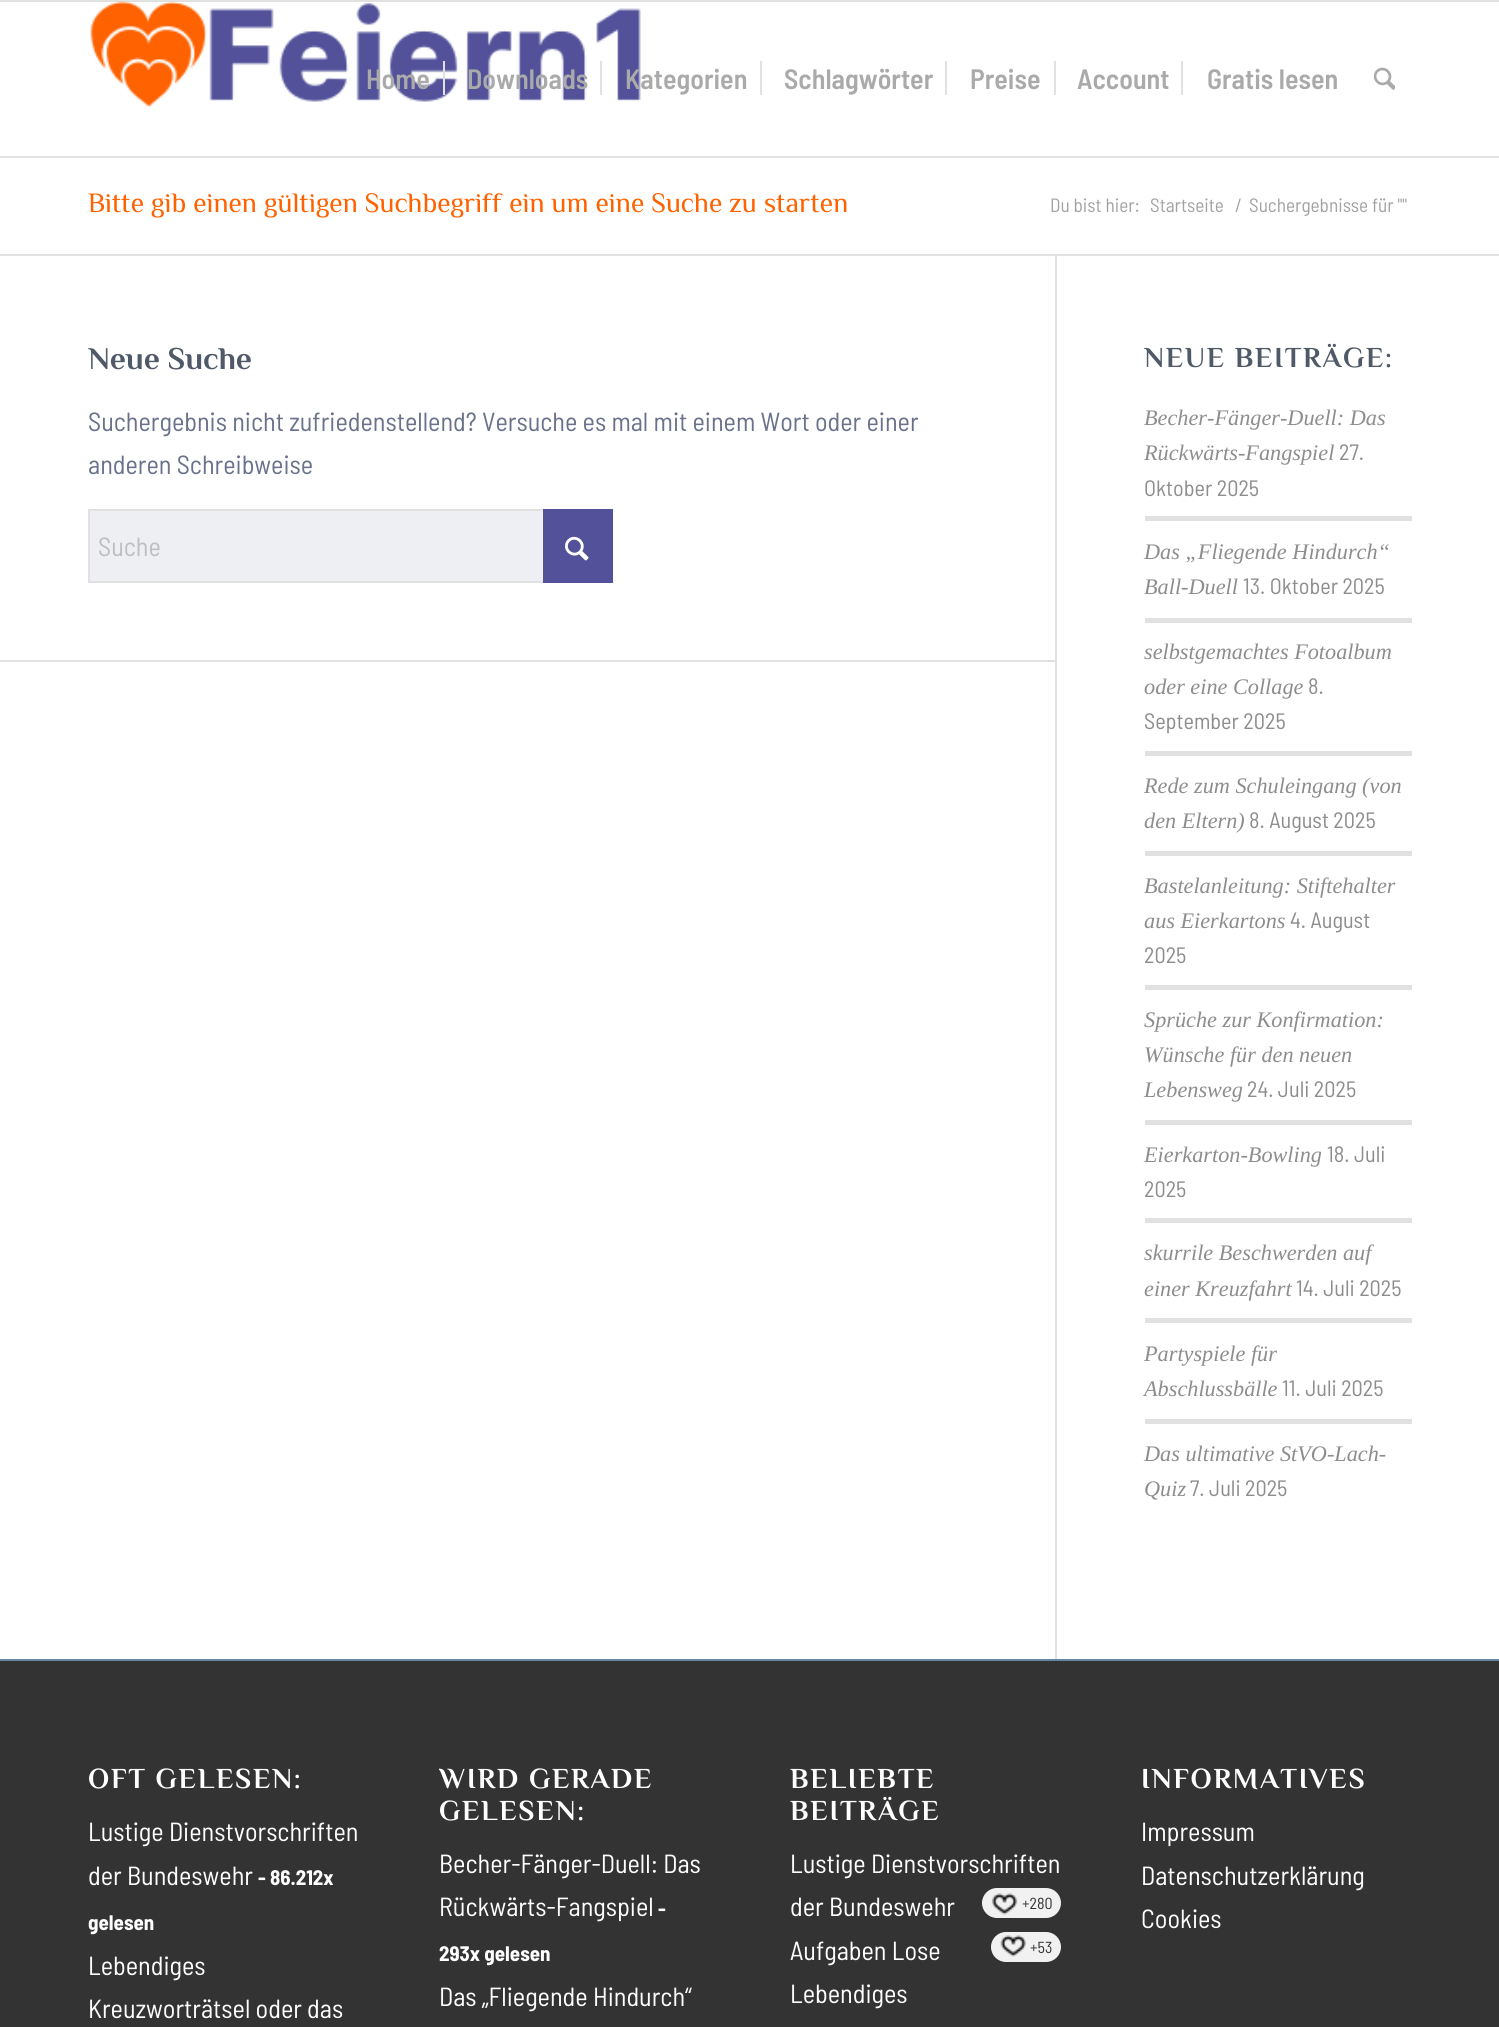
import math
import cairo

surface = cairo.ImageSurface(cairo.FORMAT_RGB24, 1499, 2027)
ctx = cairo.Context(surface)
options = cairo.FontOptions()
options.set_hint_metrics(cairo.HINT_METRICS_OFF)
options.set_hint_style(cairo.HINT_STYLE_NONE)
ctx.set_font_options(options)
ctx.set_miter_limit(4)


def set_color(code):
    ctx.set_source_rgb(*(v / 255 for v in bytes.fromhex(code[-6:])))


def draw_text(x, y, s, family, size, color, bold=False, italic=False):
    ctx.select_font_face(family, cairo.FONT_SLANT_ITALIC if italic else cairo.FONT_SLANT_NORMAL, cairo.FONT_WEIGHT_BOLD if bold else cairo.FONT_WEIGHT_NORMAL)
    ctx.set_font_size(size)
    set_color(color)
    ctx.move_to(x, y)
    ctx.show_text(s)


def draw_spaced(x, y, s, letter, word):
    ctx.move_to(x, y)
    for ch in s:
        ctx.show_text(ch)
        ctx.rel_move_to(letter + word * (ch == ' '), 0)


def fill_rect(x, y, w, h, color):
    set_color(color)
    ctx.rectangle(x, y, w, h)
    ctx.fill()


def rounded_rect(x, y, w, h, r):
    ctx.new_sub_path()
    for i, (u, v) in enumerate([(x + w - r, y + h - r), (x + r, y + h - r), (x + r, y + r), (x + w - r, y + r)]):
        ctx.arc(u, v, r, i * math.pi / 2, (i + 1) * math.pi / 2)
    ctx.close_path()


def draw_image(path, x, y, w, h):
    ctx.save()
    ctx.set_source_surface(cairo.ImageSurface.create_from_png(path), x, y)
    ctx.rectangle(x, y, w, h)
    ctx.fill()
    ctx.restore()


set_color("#ffffff")
ctx.paint()
fill_rect(0, 0, 1499, 2, "#e1e1e1")
fill_rect(0, 156, 1499, 2, "#e1e1e1")
draw_image("assets/img1.png", 90, 1, 551, 106)
draw_text(366, 89, "Home", "Barlow Semi Condensed SemiBold", 28, "#aaaaaa")
draw_text(467, 89, "Downloads", "Barlow Semi Condensed SemiBold", 28, "#aaaaaa")
fill_rect(443, 61, 2, 34, "#e1e1e1")
draw_text(625, 89, "Kategorien", "Barlow Semi Condensed SemiBold", 28, "#aaaaaa")
fill_rect(600, 61, 2, 34, "#e1e1e1")
draw_text(784, 89, "Schlagwörter", "Barlow Semi Condensed SemiBold", 28, "#aaaaaa")
fill_rect(760, 61, 2, 34, "#e1e1e1")
draw_text(970, 89, "Preise", "Barlow Semi Condensed SemiBold", 28, "#aaaaaa")
fill_rect(945, 61, 2, 34, "#e1e1e1")
draw_text(1077, 89, "Account", "Barlow Semi Condensed SemiBold", 28, "#aaaaaa")
fill_rect(1054, 61, 2, 34, "#e1e1e1")
draw_text(1207, 89, "Gratis lesen", "Barlow Semi Condensed SemiBold", 28, "#aaaaaa")
fill_rect(1181, 61, 2, 34, "#e1e1e1")
draw_image("assets/img2.png", 1374, 67, 21, 23)
draw_text(88, 212, "Bitte gib einen gültigen Suchbegriff ein um eine Suche zu starten", "Philosopher", 28, "#ff6200")
draw_text(1050, 212, "Du bist hier:", "Barlow Semi Condensed", 19.25, "#a2a2a2")
draw_text(1150, 212, "Startseite", "Barlow Semi Condensed", 19.25, "#a2a2a2")
draw_text(1235, 212, "/", "Barlow Semi Condensed", 19.25, "#a2a2a2")
draw_text(1249, 212, "Suchergebnisse für \"\"", "Barlow Semi Condensed", 19.25, "#a2a2a2")
fill_rect(0, 254, 1499, 2, "#e1e1e1")
draw_text(88, 369, "Neue Suche", "Philosopher", 31.5, "#505968", bold=True)
draw_text(88, 431, "Suchergebnis nicht zufriedenstellend? Versuche es mal mit einem Wort oder einer", "Barlow Semi Condensed", 26.25, "#69728a")
draw_text(88, 474, "anderen Schreibweise", "Barlow Semi Condensed", 26.25, "#69728a")
fill_rect(90, 511, 453, 70, "#edeff2")
ctx.rectangle(89, 510, 523, 72)
set_color("#e1e1e1")
ctx.stroke()
fill_rect(543, 509, 70, 74, "#525199")
draw_text(98, 556, "Suche", "Barlow Semi Condensed", 26.25, "#bdbec0")
draw_image("assets/img3.png", 565, 536, 24, 25)
fill_rect(0, 660, 1055, 2, "#e1e1e1")
fill_rect(1055, 256, 2, 1403, "#e1e1e1")
ctx.select_font_face("Philosopher", cairo.FONT_SLANT_NORMAL, cairo.FONT_WEIGHT_BOLD)
ctx.set_font_size(28.9)
set_color("#505968")
draw_spaced(1144, 367, "NEUE BEITRÄGE:", 1.75, 0)
draw_text(1144, 425, "Becher-Fänger-Duell: Das", "Liberation Serif", 22.25, "#8d8d8d", italic=True)
draw_text(1144, 460, "Rückwärts-Fangspiel", "Liberation Serif", 22.25, "#8d8d8d", italic=True)
draw_text(1339, 460, "27.", "Barlow Semi Condensed", 22.25, "#8d8d8d")
draw_text(1144, 496, "Oktober 2025", "Barlow Semi Condensed", 22.25, "#8d8d8d")
fill_rect(1145, 516, 267, 5, "#e1e1e1")
draw_text(1144, 559, "Das „Fliegende Hindurch“", "Liberation Serif", 22.25, "#8d8d8d", italic=True)
draw_text(1144, 594, "Ball-Duell", "Liberation Serif", 22.25, "#8d8d8d", italic=True)
draw_text(1243, 594, "13. Oktober 2025", "Barlow Semi Condensed", 22.25, "#8d8d8d")
fill_rect(1145, 618, 267, 5, "#e1e1e1")
draw_text(1144, 659, "selbstgemachtes Fotoalbum", "Liberation Serif", 22.25, "#8d8d8d", italic=True)
draw_text(1144, 694, "oder eine Collage", "Liberation Serif", 22.25, "#8d8d8d", italic=True)
draw_text(1308, 694, "8.", "Barlow Semi Condensed", 22.25, "#8d8d8d")
draw_text(1144, 729, "September 2025", "Barlow Semi Condensed", 22.25, "#8d8d8d")
fill_rect(1145, 751, 267, 5, "#e1e1e1")
draw_text(1144, 793, "Rede zum Schuleingang (von", "Liberation Serif", 22.25, "#8d8d8d", italic=True)
draw_text(1144, 828, "den Eltern)", "Liberation Serif", 22.25, "#8d8d8d", italic=True)
draw_text(1249, 828, "8. August 2025", "Barlow Semi Condensed", 22.25, "#8d8d8d")
fill_rect(1145, 851, 267, 5, "#e1e1e1")
draw_text(1144, 893, "Bastelanleitung: Stiftehalter", "Liberation Serif", 22.25, "#8d8d8d", italic=True)
draw_text(1144, 928, "aus Eierkartons", "Liberation Serif", 22.25, "#8d8d8d", italic=True)
draw_text(1290, 928, "4. August", "Barlow Semi Condensed", 22.25, "#8d8d8d")
draw_text(1144, 963, "2025", "Barlow Semi Condensed", 22.25, "#8d8d8d")
fill_rect(1145, 985, 267, 5, "#e1e1e1")
draw_text(1144, 1027, "Sprüche zur Konfirmation:", "Liberation Serif", 22.25, "#8d8d8d", italic=True)
draw_text(1144, 1062, "Wünsche für den neuen", "Liberation Serif", 22.25, "#8d8d8d", italic=True)
draw_text(1144, 1097, "Lebensweg", "Liberation Serif", 22.25, "#8d8d8d", italic=True)
draw_text(1247, 1097, "24. Juli 2025", "Barlow Semi Condensed", 22.25, "#8d8d8d")
fill_rect(1145, 1120, 267, 5, "#e1e1e1")
draw_text(1144, 1162, "Eierkarton-Bowling", "Liberation Serif", 22.25, "#8d8d8d", italic=True)
draw_text(1327, 1162, "18. Juli", "Barlow Semi Condensed", 22.25, "#8d8d8d")
draw_text(1144, 1197, "2025", "Barlow Semi Condensed", 22.25, "#8d8d8d")
fill_rect(1145, 1218, 267, 5, "#e1e1e1")
draw_text(1144, 1260, "skurrile Beschwerden auf", "Liberation Serif", 22.25, "#8d8d8d", italic=True)
draw_text(1144, 1296, "einer Kreuzfahrt", "Liberation Serif", 22.25, "#8d8d8d", italic=True)
draw_text(1296, 1296, "14. Juli 2025", "Barlow Semi Condensed", 22.25, "#8d8d8d")
fill_rect(1145, 1318, 267, 5, "#e1e1e1")
draw_text(1144, 1361, "Partyspiele für", "Liberation Serif", 22.25, "#8d8d8d", italic=True)
draw_text(1144, 1396, "Abschlussbälle", "Liberation Serif", 22.25, "#8d8d8d", italic=True)
draw_text(1282, 1396, "11. Juli 2025", "Barlow Semi Condensed", 22.25, "#8d8d8d")
fill_rect(1145, 1419, 267, 5, "#e1e1e1")
draw_text(1144, 1461, "Das ultimative StVO-Lach-", "Liberation Serif", 22.25, "#8d8d8d", italic=True)
draw_text(1144, 1496, "Quiz", "Liberation Serif", 22.25, "#8d8d8d", italic=True)
draw_text(1190, 1496, "7. Juli 2025", "Barlow Semi Condensed", 22.25, "#8d8d8d")
fill_rect(0, 1661, 1499, 366, "#333333")
fill_rect(0, 1659, 1499, 2, "#6786a1")
ctx.select_font_face("Philosopher", cairo.FONT_SLANT_NORMAL, cairo.FONT_WEIGHT_BOLD)
ctx.set_font_size(28.9)
set_color("#ffffff")
draw_spaced(88, 1788, "OFT GELESEN:", 1.75, 0)
draw_text(88, 1841, "Lustige Dienstvorschriften", "Barlow Semi Condensed", 26.25, "#ffffff")
draw_text(88, 1885, "der Bundeswehr", "Barlow Semi Condensed", 26.25, "#ffffff")
draw_text(258, 1885, "- 86.212x", "Barlow Semi Condensed", 21, "#ffffff", bold=True)
draw_text(88, 1930, "gelesen", "Barlow Semi Condensed", 21, "#ffffff", bold=True)
draw_text(88, 1975, "Lebendiges", "Barlow Semi Condensed", 26.25, "#ffffff")
draw_text(88, 2018, "Kreuzworträtsel oder das", "Barlow Semi Condensed", 26.25, "#ffffff")
ctx.save()
ctx.rectangle(439, 1740, 272, 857)
ctx.clip()
ctx.select_font_face("Philosopher", cairo.FONT_SLANT_NORMAL, cairo.FONT_WEIGHT_BOLD)
ctx.set_font_size(28.9)
draw_spaced(439, 1788, "WIRD GERADE", 1.75, 0)
ctx.restore()
ctx.select_font_face("Philosopher", cairo.FONT_SLANT_NORMAL, cairo.FONT_WEIGHT_BOLD)
ctx.set_font_size(28.9)
draw_spaced(439, 1820, "GELESEN:", 1.75, 0)
draw_text(439, 1873, "Becher-Fänger-Duell: Das", "Barlow Semi Condensed", 26.25, "#ffffff")
draw_text(439, 1916, "Rückwärts-Fangspiel", "Barlow Semi Condensed", 26.25, "#ffffff")
draw_text(658, 1916, "-", "Barlow Semi Condensed", 21, "#ffffff", bold=True)
draw_text(439, 1961, "293x gelesen", "Barlow Semi Condensed", 21, "#ffffff", bold=True)
draw_text(439, 2006, "Das „Fliegende Hindurch“", "Barlow Semi Condensed", 26.25, "#ffffff")
ctx.select_font_face("Philosopher", cairo.FONT_SLANT_NORMAL, cairo.FONT_WEIGHT_BOLD)
ctx.set_font_size(28.9)
draw_spaced(790, 1788, "BELIEBTE", 1.75, 0)
draw_spaced(790, 1820, "BEITRÄGE", 1.75, 0)
draw_text(790, 1873, "Lustige Dienstvorschriften", "Barlow Semi Condensed", 26.25, "#ffffff")
draw_text(790, 1916, "der Bundeswehr", "Barlow Semi Condensed", 26.25, "#ffffff")
set_color("#f1f1f1")
rounded_rect(982, 1888, 79, 30, 15)
ctx.fill()
draw_image("assets/img4.png", 991, 1893, 27, 22)
draw_text(1022, 1909, "+280", "Barlow Semi Condensed", 16, "#333333")
draw_text(790, 1960, "Aufgaben Lose", "Barlow Semi Condensed", 26.25, "#ffffff")
set_color("#f1f1f1")
rounded_rect(991, 1932, 70, 30, 15)
ctx.fill()
draw_image("assets/img5.png", 1000, 1935, 26, 22)
draw_text(1030, 1953, "+53", "Barlow Semi Condensed", 16, "#333333")
draw_text(790, 2003, "Lebendiges", "Barlow Semi Condensed", 26.25, "#ffffff")
ctx.select_font_face("Philosopher", cairo.FONT_SLANT_NORMAL, cairo.FONT_WEIGHT_BOLD)
ctx.set_font_size(28.9)
draw_spaced(1141, 1788, "INFORMATIVES", 1.75, 0)
draw_text(1141, 1841, "Impressum", "Barlow Semi Condensed", 26.25, "#ffffff")
draw_text(1141, 1885, "Datenschutzerklärung", "Barlow Semi Condensed", 26.25, "#ffffff")
draw_text(1141, 1928, "Cookies", "Barlow Semi Condensed", 26.25, "#ffffff")
surface.write_to_png("output.png")
